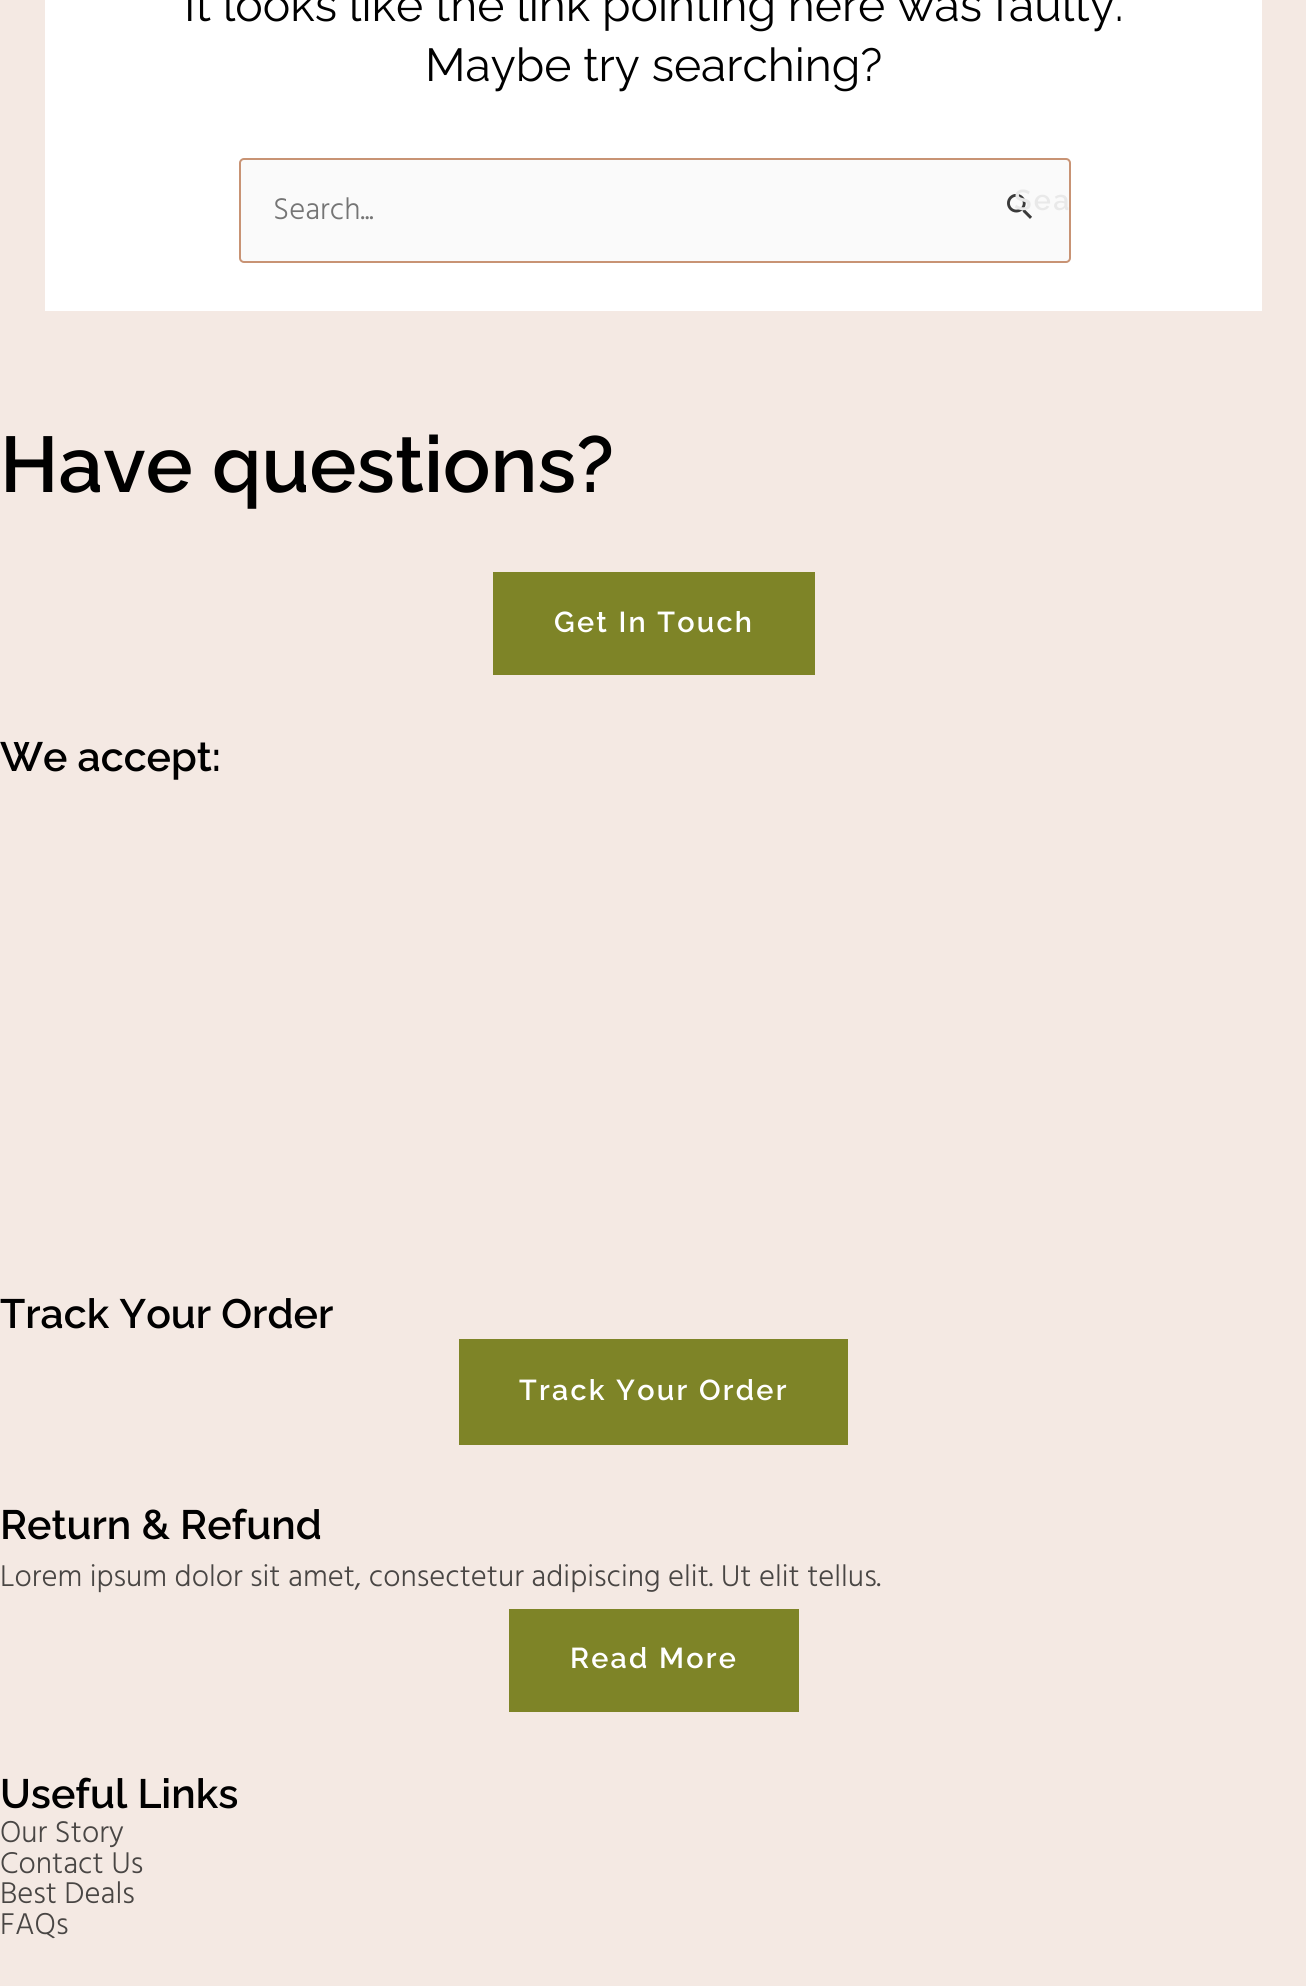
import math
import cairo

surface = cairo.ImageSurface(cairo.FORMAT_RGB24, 1306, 1986)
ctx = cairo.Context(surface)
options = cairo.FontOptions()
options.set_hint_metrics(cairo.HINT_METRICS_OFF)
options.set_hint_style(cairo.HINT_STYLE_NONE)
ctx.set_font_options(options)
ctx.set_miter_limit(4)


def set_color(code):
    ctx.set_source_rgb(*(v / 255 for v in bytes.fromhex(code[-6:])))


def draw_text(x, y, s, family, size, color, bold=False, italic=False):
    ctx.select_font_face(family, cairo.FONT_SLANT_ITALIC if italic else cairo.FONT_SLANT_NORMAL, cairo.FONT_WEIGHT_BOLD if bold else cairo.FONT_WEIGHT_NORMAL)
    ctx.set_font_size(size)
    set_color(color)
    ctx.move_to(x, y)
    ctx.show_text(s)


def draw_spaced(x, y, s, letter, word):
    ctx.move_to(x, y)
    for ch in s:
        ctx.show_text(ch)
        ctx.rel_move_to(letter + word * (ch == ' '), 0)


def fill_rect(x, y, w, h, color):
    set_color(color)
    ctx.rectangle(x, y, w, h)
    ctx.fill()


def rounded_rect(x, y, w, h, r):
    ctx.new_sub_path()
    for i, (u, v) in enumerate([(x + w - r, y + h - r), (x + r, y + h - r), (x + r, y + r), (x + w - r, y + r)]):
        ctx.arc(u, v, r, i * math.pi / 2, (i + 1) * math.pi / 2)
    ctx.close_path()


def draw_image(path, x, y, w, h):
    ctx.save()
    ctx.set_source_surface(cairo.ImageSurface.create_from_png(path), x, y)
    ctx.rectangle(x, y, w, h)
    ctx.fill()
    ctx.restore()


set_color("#f4e9e3")
ctx.paint()
fill_rect(45, 0, 1217, 311, "#ffffff")
draw_text(184, 21, "It looks like the link pointing here was faulty.", "Raleway", 46.2, "#000000")
draw_text(425, 81, "Maybe try searching?", "Raleway", 46.2, "#000000")
set_color("#fafafa")
rounded_rect(240, 159, 830, 103, 4)
ctx.fill_preserve()
set_color("#c89374")
ctx.stroke()
draw_text(273, 219, "Search...", "Hind Light", 30.75, "#757575")
draw_image("assets/img1.png", 1007, 194, 25, 25)
ctx.select_font_face("Raleway SemiBold")
ctx.set_font_size(28.75)
set_color("#e9e9e9")
draw_spaced(1014, 210, "Sea", 2.25, 0)
draw_text(0, 492, "Have questions?", "Raleway SemiBold", 78.75, "#000000")
fill_rect(493, 572, 322, 103, "#7e8427")
ctx.set_font_size(28.75)
set_color("#ffffff")
draw_spaced(554, 632, "Get In Touch", 2.25, 0)
draw_text(0, 771, "We accept:", "Raleway SemiBold", 41, "#000000")
draw_text(0, 1328, "Track Your Order", "Raleway SemiBold", 41, "#000000")
fill_rect(459, 1339, 389, 106, "#7e8427")
ctx.set_font_size(28.75)
set_color("#ffffff")
draw_spaced(519, 1400, "Track Your Order", 2.25, 0)
draw_text(0, 1539, "Return & Refund", "Raleway SemiBold", 41, "#000000")
draw_text(0, 1586, "Lorem ipsum dolor sit amet, consectetur adipiscing elit. Ut elit tellus.", "Hind Light", 30.75, "#494644")
fill_rect(509, 1609, 290, 103, "#7e8427")
ctx.select_font_face("Raleway SemiBold")
ctx.set_font_size(28.75)
set_color("#ffffff")
draw_spaced(570, 1668, "Read More", 2.25, 0)
draw_text(0, 1808, "Useful Links", "Raleway SemiBold", 41, "#000000")
draw_text(0, 1842, "Our Story", "Hind Light", 30.75, "#494644")
draw_text(0, 1873, "Contact Us", "Hind Light", 30.75, "#494644")
draw_text(0, 1903, "Best Deals", "Hind Light", 30.75, "#494644")
draw_text(0, 1934, "FAQs", "Hind Light", 30.75, "#494644")
surface.write_to_png("output.png")
